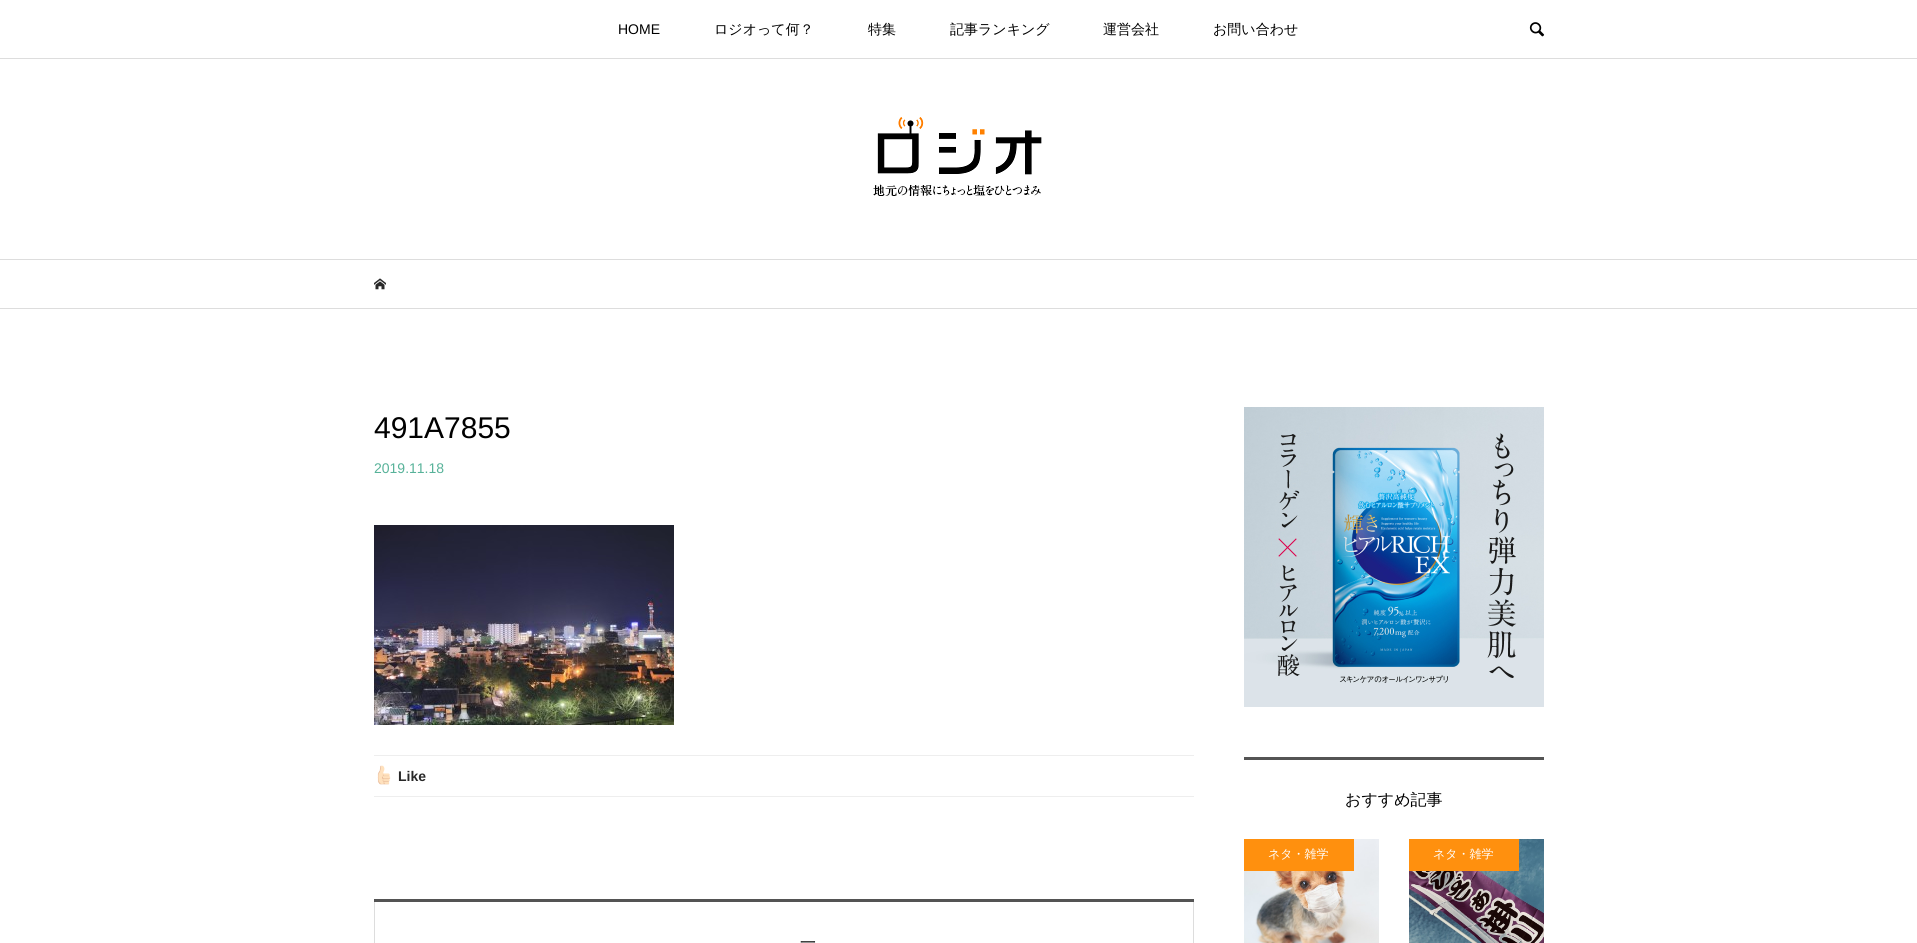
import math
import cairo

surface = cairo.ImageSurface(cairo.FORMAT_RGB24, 1917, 943)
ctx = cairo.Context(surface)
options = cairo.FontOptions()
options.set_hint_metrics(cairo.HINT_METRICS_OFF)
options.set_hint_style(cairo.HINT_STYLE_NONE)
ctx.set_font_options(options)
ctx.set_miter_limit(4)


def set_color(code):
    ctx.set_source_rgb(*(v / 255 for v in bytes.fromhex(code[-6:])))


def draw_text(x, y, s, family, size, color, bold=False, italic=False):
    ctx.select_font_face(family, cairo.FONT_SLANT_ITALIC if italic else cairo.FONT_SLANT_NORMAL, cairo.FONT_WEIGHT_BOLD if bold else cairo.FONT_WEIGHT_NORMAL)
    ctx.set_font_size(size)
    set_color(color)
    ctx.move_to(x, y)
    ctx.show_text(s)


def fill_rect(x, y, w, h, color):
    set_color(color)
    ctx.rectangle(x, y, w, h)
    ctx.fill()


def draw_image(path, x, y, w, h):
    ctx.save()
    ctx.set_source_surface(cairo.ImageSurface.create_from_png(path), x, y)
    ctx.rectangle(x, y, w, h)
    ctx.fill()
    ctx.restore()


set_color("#ffffff")
ctx.paint()
fill_rect(0, 58, 1917, 1, "#dddddd")
draw_text(618, 34, "HOME", "Liberation Sans", 14, "#000000")
draw_text(714, 34, "ロジオって何？", "WenQuanYi Zen Hei Medium", 14, "#000000")
draw_text(868, 34, "特集", "WenQuanYi Zen Hei Medium", 14, "#000000")
draw_text(950, 34, "記事ランキング", "WenQuanYi Zen Hei Medium", 14, "#000000")
draw_text(1103, 34, "運営会社", "WenQuanYi Zen Hei Medium", 14, "#000000")
draw_text(1213, 34, "お問い合わせ", "WenQuanYi Zen Hei Medium", 14, "#000000")
draw_image("assets/img1.png", 1529, 22, 16, 15)
draw_image("assets/img2.png", 873, 117, 169, 79)
fill_rect(0, 259, 1917, 1, "#dddddd")
fill_rect(0, 308, 1917, 1, "#dddddd")
draw_image("assets/img3.png", 374, 278, 12, 12)
draw_text(374, 438, "491A7855", "Liberation Sans", 30, "#000000")
draw_text(374, 473, "2019.11.18", "Liberation Sans", 14, "#57b299")
draw_image("assets/img4.png", 374, 525, 300, 200)
fill_rect(374, 755, 820, 1, "#eeeeee")
fill_rect(374, 796, 820, 1, "#eeeeee")
draw_image("assets/img5.png", 377, 765, 14, 20)
draw_text(398, 781, "Like", "Liberation Sans", 14, "#282828", bold=True)
fill_rect(374, 899, 820, 3, "#545454")
fill_rect(1193, 902, 1, 41, "#dddddd")
fill_rect(374, 902, 1, 41, "#dddddd")
draw_text(800, 948, "一", "WenQuanYi Zen Hei Medium", 16, "#000000")
draw_image("assets/img6.png", 1244, 407, 300, 300)
fill_rect(1244, 757, 300, 3, "#545454")
draw_text(1345, 805, "おすすめ記事", "WenQuanYi Zen Hei Medium", 16, "#000000")
draw_image("assets/img7.png", 1244, 839, 135, 104)
fill_rect(1244, 839, 110, 32, "#ff900e")
draw_text(1268, 858, "ネタ・雑学", "WenQuanYi Zen Hei Medium", 12, "#ffffff")
draw_image("assets/img8.png", 1409, 839, 135, 104)
fill_rect(1409, 839, 110, 32, "#ff900e")
draw_text(1433, 858, "ネタ・雑学", "WenQuanYi Zen Hei Medium", 12, "#ffffff")
surface.write_to_png("output.png")
